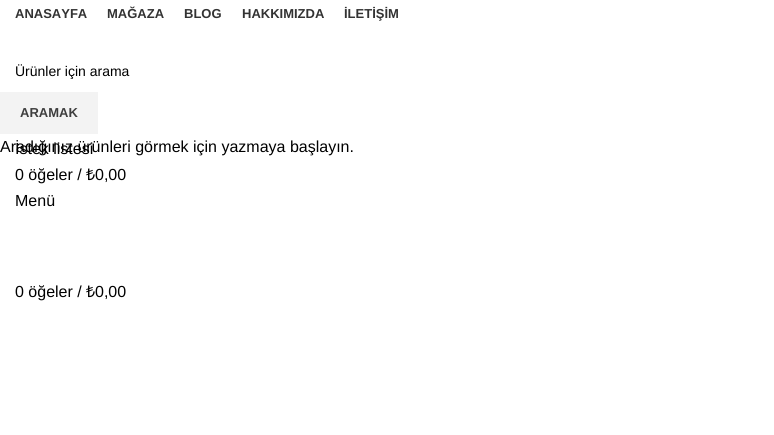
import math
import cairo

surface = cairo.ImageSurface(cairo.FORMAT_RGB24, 774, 435)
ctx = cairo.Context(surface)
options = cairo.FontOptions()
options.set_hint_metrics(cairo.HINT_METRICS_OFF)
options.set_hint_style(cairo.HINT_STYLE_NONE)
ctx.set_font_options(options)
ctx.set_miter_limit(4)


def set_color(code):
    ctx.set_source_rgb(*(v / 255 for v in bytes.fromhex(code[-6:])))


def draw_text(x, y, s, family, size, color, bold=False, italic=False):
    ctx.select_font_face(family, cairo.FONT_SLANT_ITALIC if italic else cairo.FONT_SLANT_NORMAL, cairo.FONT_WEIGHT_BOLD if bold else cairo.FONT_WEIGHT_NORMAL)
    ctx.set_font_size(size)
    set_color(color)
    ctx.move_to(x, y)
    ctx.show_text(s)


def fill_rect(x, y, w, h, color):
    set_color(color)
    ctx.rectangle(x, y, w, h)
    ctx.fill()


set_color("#ffffff")
ctx.paint()
draw_text(15, 18, "ANASAYFA", "Liberation Sans", 13, "#333333", bold=True)
draw_text(107, 18, "MAĞAZA", "Liberation Sans", 13, "#333333", bold=True)
draw_text(184, 18, "BLOG", "Liberation Sans", 13, "#333333", bold=True)
draw_text(242, 18, "HAKKIMIZDA", "Liberation Sans", 13, "#333333", bold=True)
draw_text(344, 18, "İLETİŞİM", "Liberation Sans", 13, "#333333", bold=True)
draw_text(15, 154, "İstek listesi", "Liberation Sans", 16, "#000000")
draw_text(15, 180, "0 öğeler /", "Liberation Sans", 16, "#000000")
draw_text(86, 180, "₺", "Noto Sans", 16, "#000000")
draw_text(95, 180, "0,00", "Liberation Sans", 16, "#000000")
draw_text(15, 206, "Menü", "Liberation Sans", 16, "#000000")
draw_text(15, 297, "0 öğeler /", "Liberation Sans", 16, "#000000")
draw_text(86, 297, "₺", "Noto Sans", 16, "#000000")
draw_text(95, 297, "0,00", "Liberation Sans", 16, "#000000")
draw_text(15, 76, "Ürünler için arama", "Liberation Sans", 14, "#000000")
fill_rect(0, 92, 98, 42, "#f3f3f3")
draw_text(20, 117, "ARAMAK", "Liberation Sans", 13, "#3e3e3e", bold=True)
draw_text(0, 152, "Aradığınız ürünleri görmek için yazmaya başlayın.", "Liberation Sans", 16, "#000000")
surface.write_to_png("output.png")
